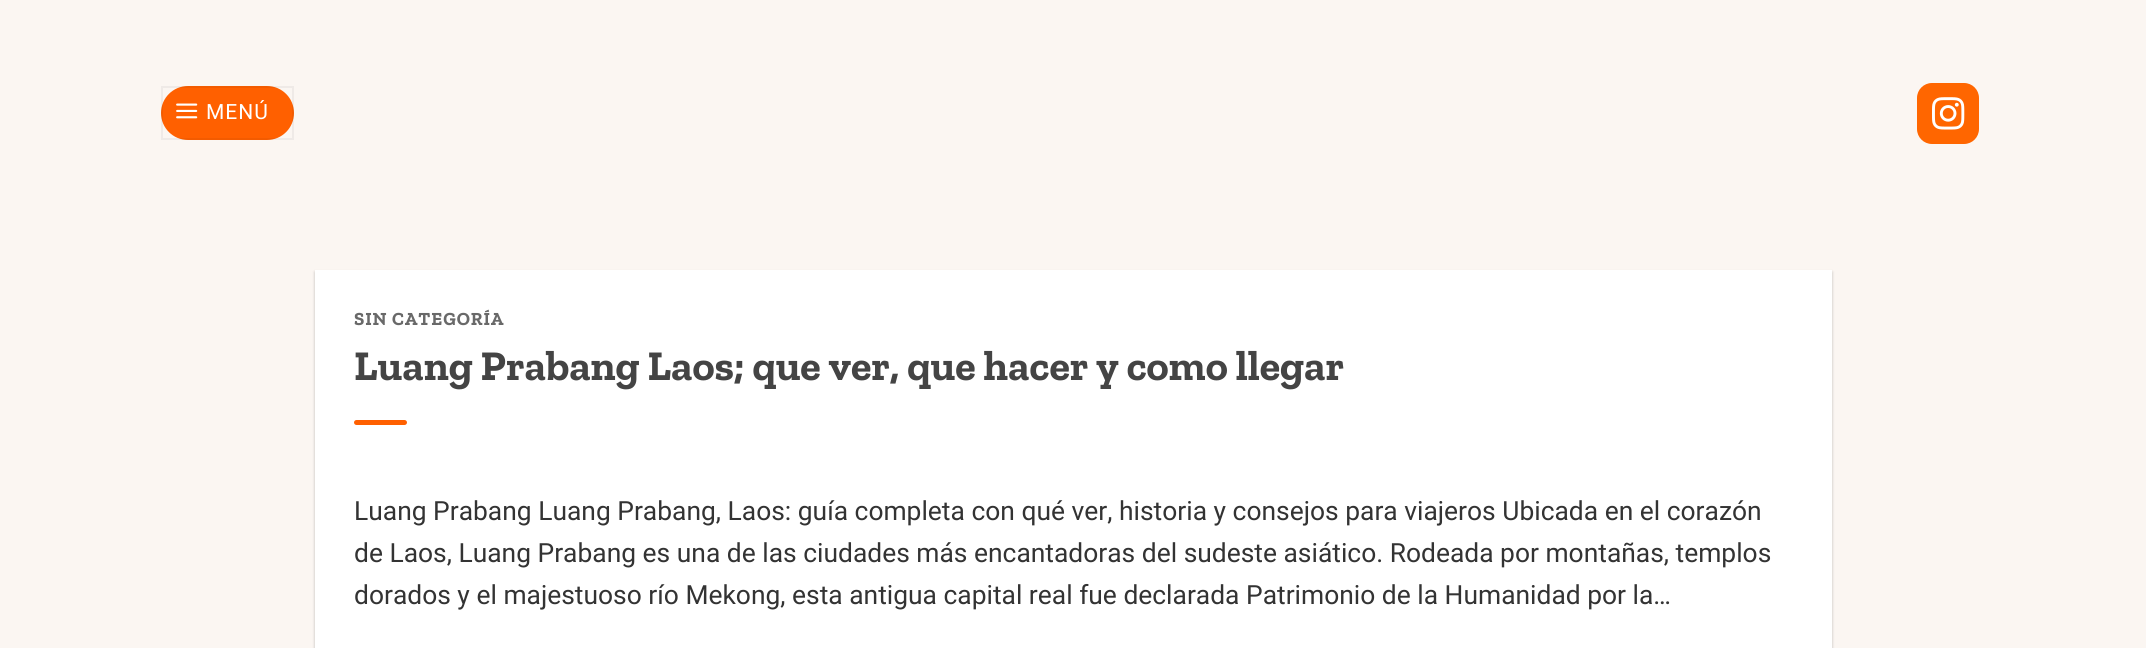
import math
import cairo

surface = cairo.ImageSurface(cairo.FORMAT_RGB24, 2146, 648)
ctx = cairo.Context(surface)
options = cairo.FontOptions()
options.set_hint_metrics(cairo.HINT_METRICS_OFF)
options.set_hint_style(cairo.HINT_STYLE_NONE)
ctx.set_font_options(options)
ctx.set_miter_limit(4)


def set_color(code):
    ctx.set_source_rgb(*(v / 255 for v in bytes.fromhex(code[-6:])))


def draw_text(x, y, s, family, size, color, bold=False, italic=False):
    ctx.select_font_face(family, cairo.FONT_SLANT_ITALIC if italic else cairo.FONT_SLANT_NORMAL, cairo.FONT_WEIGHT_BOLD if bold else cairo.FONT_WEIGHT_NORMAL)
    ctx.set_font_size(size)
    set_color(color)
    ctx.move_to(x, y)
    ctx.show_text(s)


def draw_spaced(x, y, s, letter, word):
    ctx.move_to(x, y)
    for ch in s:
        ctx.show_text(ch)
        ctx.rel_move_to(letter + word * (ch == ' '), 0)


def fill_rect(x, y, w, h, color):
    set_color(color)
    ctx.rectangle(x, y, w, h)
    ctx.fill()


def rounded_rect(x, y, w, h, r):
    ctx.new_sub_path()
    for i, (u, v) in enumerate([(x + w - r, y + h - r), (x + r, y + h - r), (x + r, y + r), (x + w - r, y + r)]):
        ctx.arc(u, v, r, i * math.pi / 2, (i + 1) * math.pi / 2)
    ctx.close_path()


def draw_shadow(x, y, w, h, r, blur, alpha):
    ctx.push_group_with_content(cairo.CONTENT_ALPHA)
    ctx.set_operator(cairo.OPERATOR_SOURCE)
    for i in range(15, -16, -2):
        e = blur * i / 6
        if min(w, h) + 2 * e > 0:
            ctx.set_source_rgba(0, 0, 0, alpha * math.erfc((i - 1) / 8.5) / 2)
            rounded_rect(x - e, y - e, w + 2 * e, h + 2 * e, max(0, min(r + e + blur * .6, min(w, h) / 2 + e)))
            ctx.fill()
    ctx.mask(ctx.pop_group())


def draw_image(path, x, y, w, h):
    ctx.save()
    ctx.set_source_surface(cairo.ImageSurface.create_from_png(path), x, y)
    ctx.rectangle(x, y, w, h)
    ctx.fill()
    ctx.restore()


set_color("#fbf6f2")
ctx.paint()
set_color("#ff6000")
rounded_rect(161, 86, 133, 54, 27)
ctx.fill()
ctx.rectangle(162, 87, 131, 52)
ctx.set_source_rgba(0, 0, 0, 0.05)
ctx.stroke()
draw_image("assets/img1.png", 176, 103, 22, 16)
ctx.select_font_face("Roboto")
ctx.set_font_size(21)
set_color("#ffffff")
draw_spaced(206, 119, "MENÚ", 1, 0)
set_color("#ff6600")
rounded_rect(1917, 83, 62, 61, 15)
ctx.fill()
draw_image("assets/img2.png", 1932, 97, 33, 33)
set_color("#000000")
draw_shadow(315, 272, 1517, 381, 0, 1.5, 0.24)
fill_rect(315, 270, 1517, 378, "#ffffff")
ctx.select_font_face("Zilla Slab", cairo.FONT_SLANT_NORMAL, cairo.FONT_WEIGHT_BOLD)
ctx.set_font_size(18.5)
set_color("#696969")
draw_spaced(354, 325, "SIN CATEGORÍA", 0.9, 0)
draw_text(354, 380, "Luang Prabang Laos; que ver, que hacer y como llegar", "Zilla Slab", 42.25, "#444444", bold=True)
set_color("#ff6000")
rounded_rect(354, 420, 53, 5, 2.5)
ctx.fill()
draw_text(354, 520, "Luang Prabang Luang Prabang, Laos: guía completa con qué ver, historia y consejos para viajeros Ubicada en el corazón", "Roboto", 26.4, "#333333")
draw_text(354, 562, "de Laos, Luang Prabang es una de las ciudades más encantadoras del sudeste asiático. Rodeada por montañas, templos", "Roboto", 26.4, "#333333")
draw_text(354, 604, "dorados y el majestuoso río Mekong, esta antigua capital real fue declarada Patrimonio de la Humanidad por la…", "Roboto", 26.4, "#333333")
surface.write_to_png("output.png")
